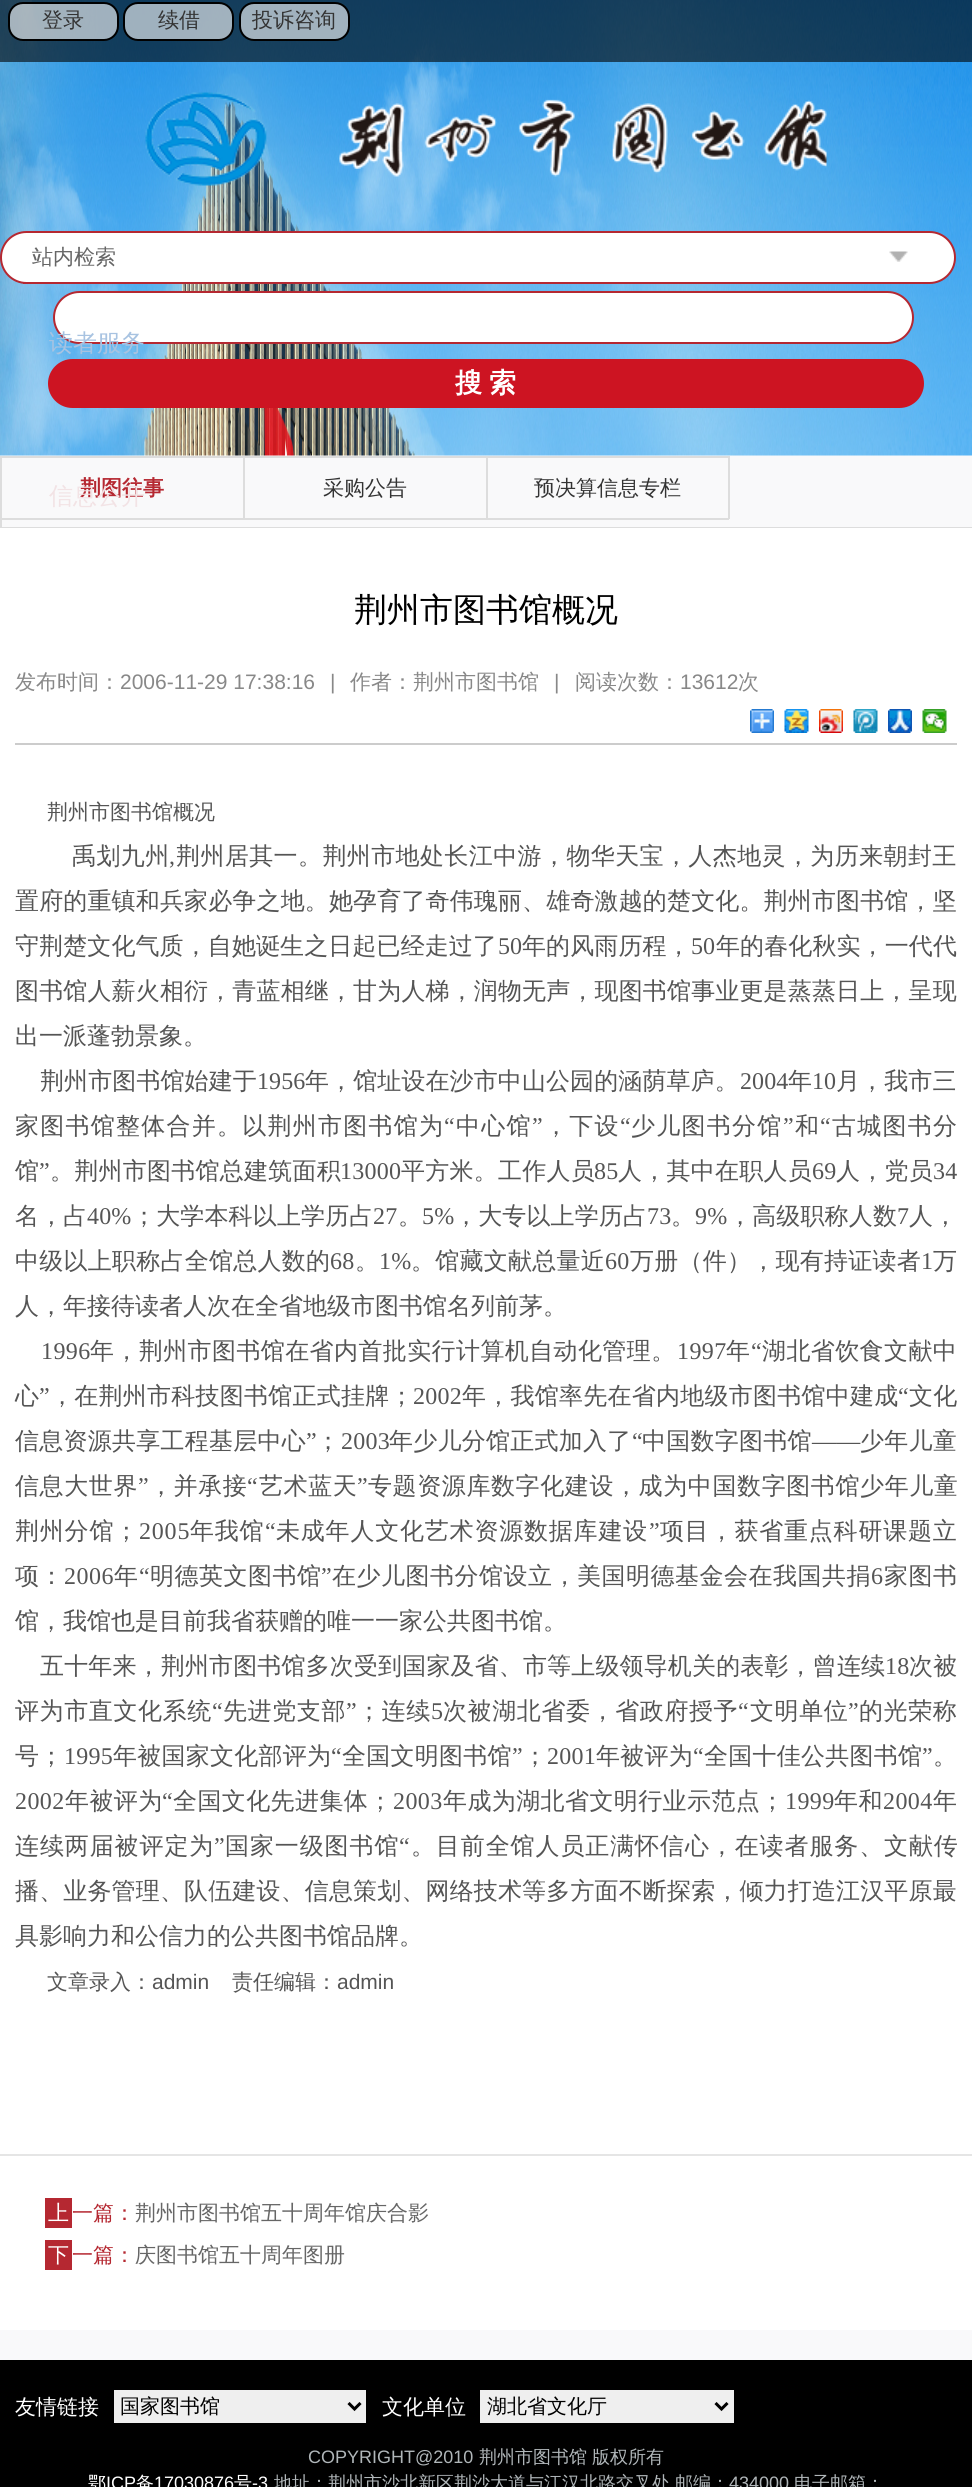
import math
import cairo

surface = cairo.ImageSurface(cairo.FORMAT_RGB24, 972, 2487)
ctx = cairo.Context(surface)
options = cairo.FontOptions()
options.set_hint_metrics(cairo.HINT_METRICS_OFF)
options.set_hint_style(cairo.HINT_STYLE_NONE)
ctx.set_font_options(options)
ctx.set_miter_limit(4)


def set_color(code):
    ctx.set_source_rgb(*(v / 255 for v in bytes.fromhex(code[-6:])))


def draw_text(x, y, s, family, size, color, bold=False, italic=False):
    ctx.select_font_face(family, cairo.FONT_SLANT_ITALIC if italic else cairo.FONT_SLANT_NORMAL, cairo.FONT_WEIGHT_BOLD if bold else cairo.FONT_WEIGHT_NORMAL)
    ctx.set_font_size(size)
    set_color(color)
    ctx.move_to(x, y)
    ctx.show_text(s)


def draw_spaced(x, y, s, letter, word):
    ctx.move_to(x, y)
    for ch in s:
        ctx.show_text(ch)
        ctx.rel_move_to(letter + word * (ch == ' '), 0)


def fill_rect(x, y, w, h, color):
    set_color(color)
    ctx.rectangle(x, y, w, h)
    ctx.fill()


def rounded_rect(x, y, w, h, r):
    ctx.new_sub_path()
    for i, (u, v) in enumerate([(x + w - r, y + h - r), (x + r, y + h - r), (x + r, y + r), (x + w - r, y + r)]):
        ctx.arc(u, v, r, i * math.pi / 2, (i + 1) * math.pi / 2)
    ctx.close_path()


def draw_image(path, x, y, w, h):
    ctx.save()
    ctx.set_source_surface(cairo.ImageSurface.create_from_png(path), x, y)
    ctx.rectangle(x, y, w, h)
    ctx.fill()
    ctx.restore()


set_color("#f9f9fa")
ctx.paint()
draw_image("assets/img1.png", 0, 0, 972, 456)
ctx.set_source_rgba(0, 0, 0, 0.6)
ctx.rectangle(0, 0, 972, 62)
ctx.fill()
ctx.set_source_rgba(1, 1, 1, 0.6)
rounded_rect(9, 3, 109, 37, 14)
ctx.fill_preserve()
set_color("#000000")
ctx.stroke()
draw_text(42, 27, "登录", "WenQuanYi Zen Hei Medium", 21, "#333333")
ctx.set_source_rgba(1, 1, 1, 0.6)
rounded_rect(124, 3, 109, 37, 14)
ctx.fill_preserve()
set_color("#000000")
ctx.stroke()
draw_text(158, 27, "续借", "WenQuanYi Zen Hei Medium", 21, "#333333")
ctx.set_source_rgba(1, 1, 1, 0.6)
rounded_rect(240, 3, 109, 37, 14)
ctx.fill_preserve()
set_color("#000000")
ctx.stroke()
draw_text(252, 27, "投诉咨询", "WenQuanYi Zen Hei Medium", 21, "#333333")
draw_image("assets/img2.png", 145, 92, 682, 94)
set_color("#ffffff")
rounded_rect(1, 232, 954, 51, 25.5)
ctx.fill_preserve()
set_color("#b52831")
ctx.stroke()
draw_image("assets/img3.png", 889, 251, 19, 11)
draw_text(32, 264, "站内检索", "WenQuanYi Zen Hei Medium", 21, "#666666")
fill_rect(23, 283, 3, 1, "#b52831")
set_color("#ffffff")
rounded_rect(54, 292, 859, 51, 25.5)
ctx.fill_preserve()
set_color("#b52831")
ctx.stroke()
set_color("#cd1422")
rounded_rect(48, 359, 876, 49, 24.5)
ctx.fill()
ctx.select_font_face("WenQuanYi Zen Hei", cairo.FONT_SLANT_NORMAL, cairo.FONT_WEIGHT_BOLD)
ctx.set_font_size(27)
set_color("#ffffff")
draw_spaced(455, 392, "搜 索", 0, -1)
draw_text(49, 351, "读者服务", "WenQuanYi Zen Hei Medium", 24, "#a8c3e1")
draw_text(80, 495, "荆图往事", "WenQuanYi Zen Hei", 21, "#b52831", bold=True)
draw_text(49, 504, "信息公开", "WenQuanYi Zen Hei Medium", 24, "#f2e3e5")
fill_rect(0, 527, 972, 1, "#dddddd")
fill_rect(0, 456, 2, 72, "#dddddd")
fill_rect(2, 456, 727, 2, "#dddddd")
fill_rect(243, 456, 2, 63, "#dddddd")
fill_rect(2, 518, 243, 2, "#dddddd")
fill_rect(486, 456, 2, 63, "#dddddd")
fill_rect(245, 518, 243, 2, "#dddddd")
draw_text(323, 495, "采购公告", "WenQuanYi Zen Hei Medium", 21, "#333333")
fill_rect(728, 456, 2, 63, "#dddddd")
fill_rect(488, 518, 241, 2, "#dddddd")
draw_text(534, 495, "预决算信息专栏", "WenQuanYi Zen Hei Medium", 21, "#333333")
fill_rect(0, 528, 972, 1626, "#ffffff")
draw_text(354, 621, "荆州市图书馆概况", "WenQuanYi Zen Hei Medium", 33, "#000000")
fill_rect(15, 743, 942, 2, "#cccccc")
draw_text(15, 689, "发布时间：", "WenQuanYi Zen Hei Medium", 21, "#888888")
draw_text(120, 689, "2006-11-29 17:38:16", "Liberation Sans", 21, "#888888")
draw_text(330, 689, "|", "Liberation Sans", 21, "#888888")
draw_text(350, 689, "作者：荆州市图书馆", "WenQuanYi Zen Hei Medium", 21, "#888888")
draw_text(554, 689, "|", "Liberation Sans", 21, "#888888")
draw_text(575, 689, "阅读次数：", "WenQuanYi Zen Hei Medium", 21, "#888888")
draw_text(680, 689, "13612", "Liberation Sans", 21, "#888888")
draw_text(738, 689, "次", "WenQuanYi Zen Hei Medium", 21, "#888888")
draw_image("assets/img4.png", 750, 709, 24, 24)
draw_image("assets/img5.png", 784, 709, 25, 24)
draw_image("assets/img6.png", 819, 709, 24, 24)
draw_image("assets/img7.png", 853, 709, 25, 24)
draw_image("assets/img8.png", 888, 709, 24, 24)
draw_image("assets/img9.png", 922, 709, 25, 24)
draw_text(47, 819, "荆州市图书馆概况", "WenQuanYi Zen Hei Medium", 21, "#555555")
ctx.set_font_size(24)
draw_spaced(72, 864, "禹划九州", 0.4, 0)
ctx.select_font_face("Liberation Serif")
draw_spaced(169, 864, ",", 0.4, 0)
ctx.select_font_face("WenQuanYi Zen Hei Medium")
draw_spaced(176, 864, "荆州居其一。荆州市地处长江中游，物华天宝，人杰地灵，为历来朝封王", 0.4, 0)
draw_spaced(15, 909, "置府的重镇和兵家必争之地。她孕育了奇伟瑰丽、雄奇激越的楚文化。荆州市图书馆，坚", 0.15, 0)
draw_spaced(15, 954, "守荆楚文化气质，自她诞生之日起已经走过了", 0.1, 0)
ctx.select_font_face("Liberation Serif")
draw_spaced(498, 954, "50", 0.1, 0)
ctx.select_font_face("WenQuanYi Zen Hei Medium")
draw_spaced(522, 954, "年的风雨历程，", 0.1, 0)
ctx.select_font_face("Liberation Serif")
draw_spaced(691, 954, "50", 0.1, 0)
ctx.select_font_face("WenQuanYi Zen Hei Medium")
draw_spaced(716, 954, "年的春化秋实，一代代", 0.1, 0)
draw_spaced(15, 999, "图书馆人薪火相衍，青蓝相继，甘为人梯，润物无声，现图书馆事业更是蒸蒸日上，呈现", 0.15, 0)
draw_text(15, 1044, "出一派蓬勃景象。", "WenQuanYi Zen Hei Medium", 24, "#555555")
draw_spaced(40, 1089, "荆州市图书馆始建于", 0.1, 0)
ctx.select_font_face("Liberation Serif")
draw_spaced(257, 1089, "1956", 0.1, 0)
ctx.select_font_face("WenQuanYi Zen Hei Medium")
draw_spaced(305, 1089, "年，馆址设在沙市中山公园的涵荫草庐。", 0.1, 0)
ctx.select_font_face("Liberation Serif")
draw_spaced(740, 1089, "2004", 0.1, 0)
ctx.select_font_face("WenQuanYi Zen Hei Medium")
draw_spaced(788, 1089, "年", 0.1, 0)
ctx.select_font_face("Liberation Serif")
draw_spaced(812, 1089, "10", 0.1, 0)
ctx.select_font_face("WenQuanYi Zen Hei Medium")
draw_spaced(836, 1089, "月，我市三", 0.1, 0)
draw_spaced(15, 1134, "家图书馆整体合并。以荆州市图书馆为", 1.25, 0)
ctx.select_font_face("Liberation Serif")
draw_spaced(444, 1134, "“", 1.25, 0)
ctx.select_font_face("WenQuanYi Zen Hei Medium")
draw_spaced(456, 1134, "中心馆", 1.25, 0)
ctx.select_font_face("Liberation Serif")
draw_spaced(532, 1134, "”", 1.25, 0)
ctx.select_font_face("WenQuanYi Zen Hei Medium")
draw_spaced(544, 1134, "，下设", 1.25, 0)
ctx.select_font_face("Liberation Serif")
draw_spaced(620, 1134, "“", 1.25, 0)
ctx.select_font_face("WenQuanYi Zen Hei Medium")
draw_spaced(631, 1134, "少儿图书分馆", 1.25, 0)
ctx.select_font_face("Liberation Serif")
draw_spaced(783, 1134, "”", 1.25, 0)
ctx.select_font_face("WenQuanYi Zen Hei Medium")
draw_spaced(795, 1134, "和", 1.25, 0)
ctx.select_font_face("Liberation Serif")
draw_spaced(820, 1134, "“", 1.25, 0)
ctx.select_font_face("WenQuanYi Zen Hei Medium")
draw_spaced(832, 1134, "古城图书分", 1.25, 0)
draw_spaced(15, 1179, "馆", 0.25, 0)
ctx.select_font_face("Liberation Serif")
draw_spaced(39, 1179, "”", 0.25, 0)
ctx.select_font_face("WenQuanYi Zen Hei Medium")
draw_spaced(50, 1179, "。荆州市图书馆总建筑面积", 0.25, 0)
ctx.select_font_face("Liberation Serif")
draw_spaced(340, 1179, "13000", 0.25, 0)
ctx.select_font_face("WenQuanYi Zen Hei Medium")
draw_spaced(401, 1179, "平方米。工作人员", 0.25, 0)
ctx.select_font_face("Liberation Serif")
draw_spaced(594, 1179, "85", 0.25, 0)
ctx.select_font_face("WenQuanYi Zen Hei Medium")
draw_spaced(618, 1179, "人，其中在职人员", 0.25, 0)
ctx.select_font_face("Liberation Serif")
draw_spaced(812, 1179, "69", 0.25, 0)
ctx.select_font_face("WenQuanYi Zen Hei Medium")
draw_spaced(836, 1179, "人，党员", 0.25, 0)
ctx.select_font_face("Liberation Serif")
draw_spaced(933, 1179, "34", 0.25, 0)
ctx.select_font_face("WenQuanYi Zen Hei Medium")
draw_spaced(15, 1224, "名，占", 0.15, 0)
ctx.select_font_face("Liberation Serif")
draw_spaced(87, 1224, "40%", 0.15, 0)
ctx.select_font_face("WenQuanYi Zen Hei Medium")
draw_spaced(132, 1224, "；大学本科以上学历占", 0.15, 0)
ctx.select_font_face("Liberation Serif")
draw_spaced(373, 1224, "27", 0.15, 0)
ctx.select_font_face("WenQuanYi Zen Hei Medium")
draw_spaced(398, 1224, "。", 0.15, 0)
ctx.select_font_face("Liberation Serif")
draw_spaced(422, 1224, "5%", 0.15, 0)
ctx.select_font_face("WenQuanYi Zen Hei Medium")
draw_spaced(454, 1224, "，大专以上学历占", 0.15, 0)
ctx.select_font_face("Liberation Serif")
draw_spaced(647, 1224, "73", 0.15, 0)
ctx.select_font_face("WenQuanYi Zen Hei Medium")
draw_spaced(671, 1224, "。", 0.15, 0)
ctx.select_font_face("Liberation Serif")
draw_spaced(695, 1224, "9%", 0.15, 0)
ctx.select_font_face("WenQuanYi Zen Hei Medium")
draw_spaced(728, 1224, "，高级职称人数", 0.15, 0)
ctx.select_font_face("Liberation Serif")
draw_spaced(897, 1224, "7", 0.15, 0)
ctx.select_font_face("WenQuanYi Zen Hei Medium")
draw_spaced(909, 1224, "人，", 0.15, 0)
draw_spaced(15, 1269, "中级以上职称占全馆总人数的", 0.25, 0)
ctx.select_font_face("Liberation Serif")
draw_spaced(330, 1269, "68", 0.25, 0)
ctx.select_font_face("WenQuanYi Zen Hei Medium")
draw_spaced(355, 1269, "。", 0.25, 0)
ctx.select_font_face("Liberation Serif")
draw_spaced(379, 1269, "1%", 0.25, 0)
ctx.select_font_face("WenQuanYi Zen Hei Medium")
draw_spaced(411, 1269, "。馆藏文献总量近", 0.25, 0)
ctx.select_font_face("Liberation Serif")
draw_spaced(605, 1269, "60", 0.25, 0)
ctx.select_font_face("WenQuanYi Zen Hei Medium")
draw_spaced(630, 1269, "万册（件），现有持证读者", 0.25, 0)
ctx.select_font_face("Liberation Serif")
draw_spaced(921, 1269, "1", 0.25, 0)
ctx.select_font_face("WenQuanYi Zen Hei Medium")
draw_spaced(933, 1269, "万", 0.25, 0)
draw_text(15, 1314, "人，年接待读者人次在全省地级市图书馆名列前茅。", "WenQuanYi Zen Hei Medium", 24, "#555555")
ctx.select_font_face("Liberation Serif")
draw_spaced(41, 1359, "1996", 0.4, 0)
ctx.select_font_face("WenQuanYi Zen Hei Medium")
draw_spaced(90, 1359, "年，荆州市图书馆在省内首批实行计算机自动化管理。", 0.4, 0)
ctx.select_font_face("Liberation Serif")
draw_spaced(677, 1359, "1997", 0.4, 0)
ctx.select_font_face("WenQuanYi Zen Hei Medium")
draw_spaced(726, 1359, "年", 0.4, 0)
ctx.select_font_face("Liberation Serif")
draw_spaced(751, 1359, "“", 0.4, 0)
ctx.select_font_face("WenQuanYi Zen Hei Medium")
draw_spaced(762, 1359, "湖北省饮食文献中", 0.4, 0)
draw_spaced(15, 1404, "心", 0.25, 0)
ctx.select_font_face("Liberation Serif")
draw_spaced(39, 1404, "”", 0.25, 0)
ctx.select_font_face("WenQuanYi Zen Hei Medium")
draw_spaced(50, 1404, "，在荆州市科技图书馆正式挂牌；", 0.25, 0)
ctx.select_font_face("Liberation Serif")
draw_spaced(413, 1404, "2002", 0.25, 0)
ctx.select_font_face("WenQuanYi Zen Hei Medium")
draw_spaced(462, 1404, "年，我馆率先在省内地级市图书馆中建成", 0.25, 0)
ctx.select_font_face("Liberation Serif")
draw_spaced(898, 1404, "“", 0.25, 0)
ctx.select_font_face("WenQuanYi Zen Hei Medium")
draw_spaced(909, 1404, "文化", 0.25, 0)
draw_spaced(15, 1449, "信息资源共享工程基层中心", 0.25, 0)
ctx.select_font_face("Liberation Serif")
draw_spaced(306, 1449, "”", 0.25, 0)
ctx.select_font_face("WenQuanYi Zen Hei Medium")
draw_spaced(316, 1449, "；", 0.25, 0)
ctx.select_font_face("Liberation Serif")
draw_spaced(341, 1449, "2003", 0.25, 0)
ctx.select_font_face("WenQuanYi Zen Hei Medium")
draw_spaced(389, 1449, "年少儿分馆正式加入了", 0.25, 0)
ctx.select_font_face("Liberation Serif")
draw_spaced(632, 1449, "“", 0.25, 0)
ctx.select_font_face("WenQuanYi Zen Hei Medium")
draw_spaced(642, 1449, "中国数字图书馆", 0.25, 0)
ctx.select_font_face("Liberation Serif")
draw_spaced(812, 1449, "——", 0.25, 0)
ctx.select_font_face("WenQuanYi Zen Hei Medium")
draw_spaced(860, 1449, "少年儿童", 0.25, 0)
draw_spaced(15, 1494, "信息大世界", 0.6, 0)
ctx.select_font_face("Liberation Serif")
draw_spaced(138, 1494, "”", 0.6, 0)
ctx.select_font_face("WenQuanYi Zen Hei Medium")
draw_spaced(149, 1494, "，并承接", 0.6, 0)
ctx.select_font_face("Liberation Serif")
draw_spaced(247, 1494, "“", 0.6, 0)
ctx.select_font_face("WenQuanYi Zen Hei Medium")
draw_spaced(259, 1494, "艺术蓝天", 0.6, 0)
ctx.select_font_face("Liberation Serif")
draw_spaced(357, 1494, "”", 0.6, 0)
ctx.select_font_face("WenQuanYi Zen Hei Medium")
draw_spaced(368, 1494, "专题资源库数字化建设，成为中国数字图书馆少年儿童", 0.6, 0)
draw_spaced(15, 1539, "荆州分馆；", 0.8, 0)
ctx.select_font_face("Liberation Serif")
draw_spaced(139, 1539, "2005", 0.8, 0)
ctx.select_font_face("WenQuanYi Zen Hei Medium")
draw_spaced(190, 1539, "年我馆", 0.8, 0)
ctx.select_font_face("Liberation Serif")
draw_spaced(265, 1539, "“", 0.8, 0)
ctx.select_font_face("WenQuanYi Zen Hei Medium")
draw_spaced(276, 1539, "未成年人文化艺术资源数据库建设", 0.8, 0)
ctx.select_font_face("Liberation Serif")
draw_spaced(649, 1539, "”", 0.8, 0)
ctx.select_font_face("WenQuanYi Zen Hei Medium")
draw_spaced(660, 1539, "项目，获省重点科研课题立", 0.8, 0)
draw_spaced(15, 1584, "项：", 0.5, 0)
ctx.select_font_face("Liberation Serif")
draw_spaced(64, 1584, "2006", 0.5, 0)
ctx.select_font_face("WenQuanYi Zen Hei Medium")
draw_spaced(114, 1584, "年", 0.5, 0)
ctx.select_font_face("Liberation Serif")
draw_spaced(139, 1584, "“", 0.5, 0)
ctx.select_font_face("WenQuanYi Zen Hei Medium")
draw_spaced(150, 1584, "明德英文图书馆", 0.5, 0)
ctx.select_font_face("Liberation Serif")
draw_spaced(321, 1584, "”", 0.5, 0)
ctx.select_font_face("WenQuanYi Zen Hei Medium")
draw_spaced(332, 1584, "在少儿图书分馆设立，美国明德基金会在我国共捐", 0.5, 0)
ctx.select_font_face("Liberation Serif")
draw_spaced(871, 1584, "6", 0.5, 0)
ctx.select_font_face("WenQuanYi Zen Hei Medium")
draw_spaced(884, 1584, "家图书", 0.5, 0)
draw_text(15, 1629, "馆，我馆也是目前我省获赠的唯一一家公共图书馆。", "WenQuanYi Zen Hei Medium", 24, "#555555")
draw_spaced(40, 1674, "五十年来，荆州市图书馆多次受到国家及省、市等上级领导机关的表彰，曾连续", 0.15, 0)
ctx.select_font_face("Liberation Serif")
draw_spaced(885, 1674, "18", 0.15, 0)
ctx.select_font_face("WenQuanYi Zen Hei Medium")
draw_spaced(909, 1674, "次被", 0.15, 0)
draw_spaced(15, 1719, "评为市直文化系统", 0.6, 0)
ctx.select_font_face("Liberation Serif")
draw_spaced(212, 1719, "“", 0.6, 0)
ctx.select_font_face("WenQuanYi Zen Hei Medium")
draw_spaced(223, 1719, "先进党支部", 0.6, 0)
ctx.select_font_face("Liberation Serif")
draw_spaced(346, 1719, "”", 0.6, 0)
ctx.select_font_face("WenQuanYi Zen Hei Medium")
draw_spaced(357, 1719, "；连续", 0.6, 0)
ctx.select_font_face("Liberation Serif")
draw_spaced(431, 1719, "5", 0.6, 0)
ctx.select_font_face("WenQuanYi Zen Hei Medium")
draw_spaced(443, 1719, "次被湖北省委，省政府授予", 0.6, 0)
ctx.select_font_face("Liberation Serif")
draw_spaced(738, 1719, "“", 0.6, 0)
ctx.select_font_face("WenQuanYi Zen Hei Medium")
draw_spaced(750, 1719, "文明单位", 0.6, 0)
ctx.select_font_face("Liberation Serif")
draw_spaced(848, 1719, "”", 0.6, 0)
ctx.select_font_face("WenQuanYi Zen Hei Medium")
draw_spaced(859, 1719, "的光荣称", 0.6, 0)
draw_spaced(15, 1764, "号；", 0.25, 0)
ctx.select_font_face("Liberation Serif")
draw_spaced(64, 1764, "1995", 0.25, 0)
ctx.select_font_face("WenQuanYi Zen Hei Medium")
draw_spaced(113, 1764, "年被国家文化部评为", 0.25, 0)
ctx.select_font_face("Liberation Serif")
draw_spaced(331, 1764, "“", 0.25, 0)
ctx.select_font_face("WenQuanYi Zen Hei Medium")
draw_spaced(342, 1764, "全国文明图书馆", 0.25, 0)
ctx.select_font_face("Liberation Serif")
draw_spaced(512, 1764, "”", 0.25, 0)
ctx.select_font_face("WenQuanYi Zen Hei Medium")
draw_spaced(523, 1764, "；", 0.25, 0)
ctx.select_font_face("Liberation Serif")
draw_spaced(547, 1764, "2001", 0.25, 0)
ctx.select_font_face("WenQuanYi Zen Hei Medium")
draw_spaced(596, 1764, "年被评为", 0.25, 0)
ctx.select_font_face("Liberation Serif")
draw_spaced(693, 1764, "“", 0.25, 0)
ctx.select_font_face("WenQuanYi Zen Hei Medium")
draw_spaced(704, 1764, "全国十佳公共图书馆", 0.25, 0)
ctx.select_font_face("Liberation Serif")
draw_spaced(922, 1764, "”", 0.25, 0)
ctx.select_font_face("WenQuanYi Zen Hei Medium")
draw_spaced(933, 1764, "。", 0.25, 0)
ctx.select_font_face("Liberation Serif")
draw_spaced(15, 1809, "2002", 0.4, 0)
ctx.select_font_face("WenQuanYi Zen Hei Medium")
draw_spaced(65, 1809, "年被评为", 0.4, 0)
ctx.select_font_face("Liberation Serif")
draw_spaced(162, 1809, "“", 0.4, 0)
ctx.select_font_face("WenQuanYi Zen Hei Medium")
draw_spaced(173, 1809, "全国文化先进集体；", 0.4, 0)
ctx.select_font_face("Liberation Serif")
draw_spaced(393, 1809, "2003", 0.4, 0)
ctx.select_font_face("WenQuanYi Zen Hei Medium")
draw_spaced(443, 1809, "年成为湖北省文明行业示范点；", 0.4, 0)
ctx.select_font_face("Liberation Serif")
draw_spaced(785, 1809, "1999", 0.4, 0)
ctx.select_font_face("WenQuanYi Zen Hei Medium")
draw_spaced(834, 1809, "年和", 0.4, 0)
ctx.select_font_face("Liberation Serif")
draw_spaced(883, 1809, "2004", 0.4, 0)
ctx.select_font_face("WenQuanYi Zen Hei Medium")
draw_spaced(933, 1809, "年", 0.4, 0)
draw_spaced(15, 1854, "连续两届被评定为", 0.9, 0)
ctx.select_font_face("Liberation Serif")
draw_spaced(214, 1854, "”", 0.9, 0)
ctx.select_font_face("WenQuanYi Zen Hei Medium")
draw_spaced(225, 1854, "国家一级图书馆", 0.9, 0)
ctx.select_font_face("Liberation Serif")
draw_spaced(399, 1854, "“", 0.9, 0)
ctx.select_font_face("WenQuanYi Zen Hei Medium")
draw_spaced(411, 1854, "。目前全馆人员正满怀信心，在读者服务、文献传", 0.9, 0)
draw_spaced(15, 1899, "播、业务管理、队伍建设、信息策划、网络技术等多方面不断探索，倾力打造江汉平原最", 0.15, 0)
draw_text(15, 1944, "具影响力和公信力的公共图书馆品牌。", "WenQuanYi Zen Hei Medium", 24, "#555555")
draw_text(47, 1989, "文章录入：", "WenQuanYi Zen Hei Medium", 21, "#555555")
draw_text(152, 1989, "admin", "Liberation Sans", 21, "#555555")
draw_text(232, 1989, "责任编辑：", "WenQuanYi Zen Hei Medium", 21, "#555555")
draw_text(337, 1989, "admin", "Liberation Sans", 21, "#555555")
fill_rect(0, 2156, 972, 174, "#ffffff")
fill_rect(0, 2154, 972, 2, "#e5e5e5")
fill_rect(45, 2198, 27, 30, "#b52831")
draw_text(48, 2220, "上", "WenQuanYi Zen Hei Medium", 21, "#ffffff")
draw_text(72, 2220, "一篇：", "WenQuanYi Zen Hei Medium", 21, "#b52831")
draw_text(135, 2220, "荆州市图书馆五十周年馆庆合影", "WenQuanYi Zen Hei Medium", 21, "#666666")
fill_rect(45, 2240, 27, 30, "#b52831")
draw_text(48, 2262, "下", "WenQuanYi Zen Hei Medium", 21, "#ffffff")
draw_text(72, 2262, "一篇：", "WenQuanYi Zen Hei Medium", 21, "#b52831")
draw_text(135, 2262, "庆图书馆五十周年图册", "WenQuanYi Zen Hei Medium", 21, "#666666")
fill_rect(0, 2360, 972, 127, "#000000")
draw_text(15, 2414, "友情链接", "WenQuanYi Zen Hei Medium", 21, "#ffffff")
fill_rect(114, 2390, 252, 33, "#efefef")
ctx.new_path()
ctx.move_to(348.5, 2403)
ctx.line_to(354.5, 2409)
ctx.line_to(360.5, 2403)
set_color("#000000")
ctx.set_line_width(3)
ctx.stroke()
draw_text(120, 2413, "国家图书馆", "WenQuanYi Zen Hei Medium", 20, "#000000")
draw_text(382, 2414, "文化单位", "WenQuanYi Zen Hei Medium", 21, "#ffffff")
fill_rect(480, 2390, 254, 33, "#efefef")
ctx.new_path()
ctx.move_to(715.5, 2403)
ctx.line_to(721.5, 2409)
ctx.line_to(727.5, 2403)
set_color("#000000")
ctx.stroke()
draw_text(487, 2413, "湖北省文化厅", "WenQuanYi Zen Hei Medium", 20, "#000000")
draw_text(308, 2463, "COPYRIGHT@2010", "Liberation Sans", 18, "#b0b6b9")
draw_text(479, 2463, "荆州市图书馆", "WenQuanYi Zen Hei Medium", 18, "#b0b6b9")
draw_text(592, 2463, "版权所有", "WenQuanYi Zen Hei Medium", 18, "#b0b6b9")
draw_text(88, 2489, "鄂", "WenQuanYi Zen Hei Medium", 18, "#ffffff")
draw_text(106, 2489, "ICP", "Liberation Sans", 18, "#ffffff")
draw_text(136, 2489, "备", "WenQuanYi Zen Hei Medium", 18, "#ffffff")
draw_text(154, 2489, "17030876", "Liberation Sans", 18, "#ffffff")
draw_text(234, 2489, "号", "WenQuanYi Zen Hei Medium", 18, "#ffffff")
draw_text(252, 2489, "-3", "Liberation Sans", 18, "#ffffff")
draw_text(274, 2489, "地址：荆州市沙北新区荆沙大道与江汉北路交叉处", "WenQuanYi Zen Hei Medium", 18, "#b0b6b9")
draw_text(675, 2489, "邮编：", "WenQuanYi Zen Hei Medium", 18, "#b0b6b9")
draw_text(729, 2489, "434000", "Liberation Sans", 18, "#b0b6b9")
draw_text(794, 2489, "电子邮箱：", "WenQuanYi Zen Hei Medium", 18, "#b0b6b9")
surface.write_to_png("output.png")
